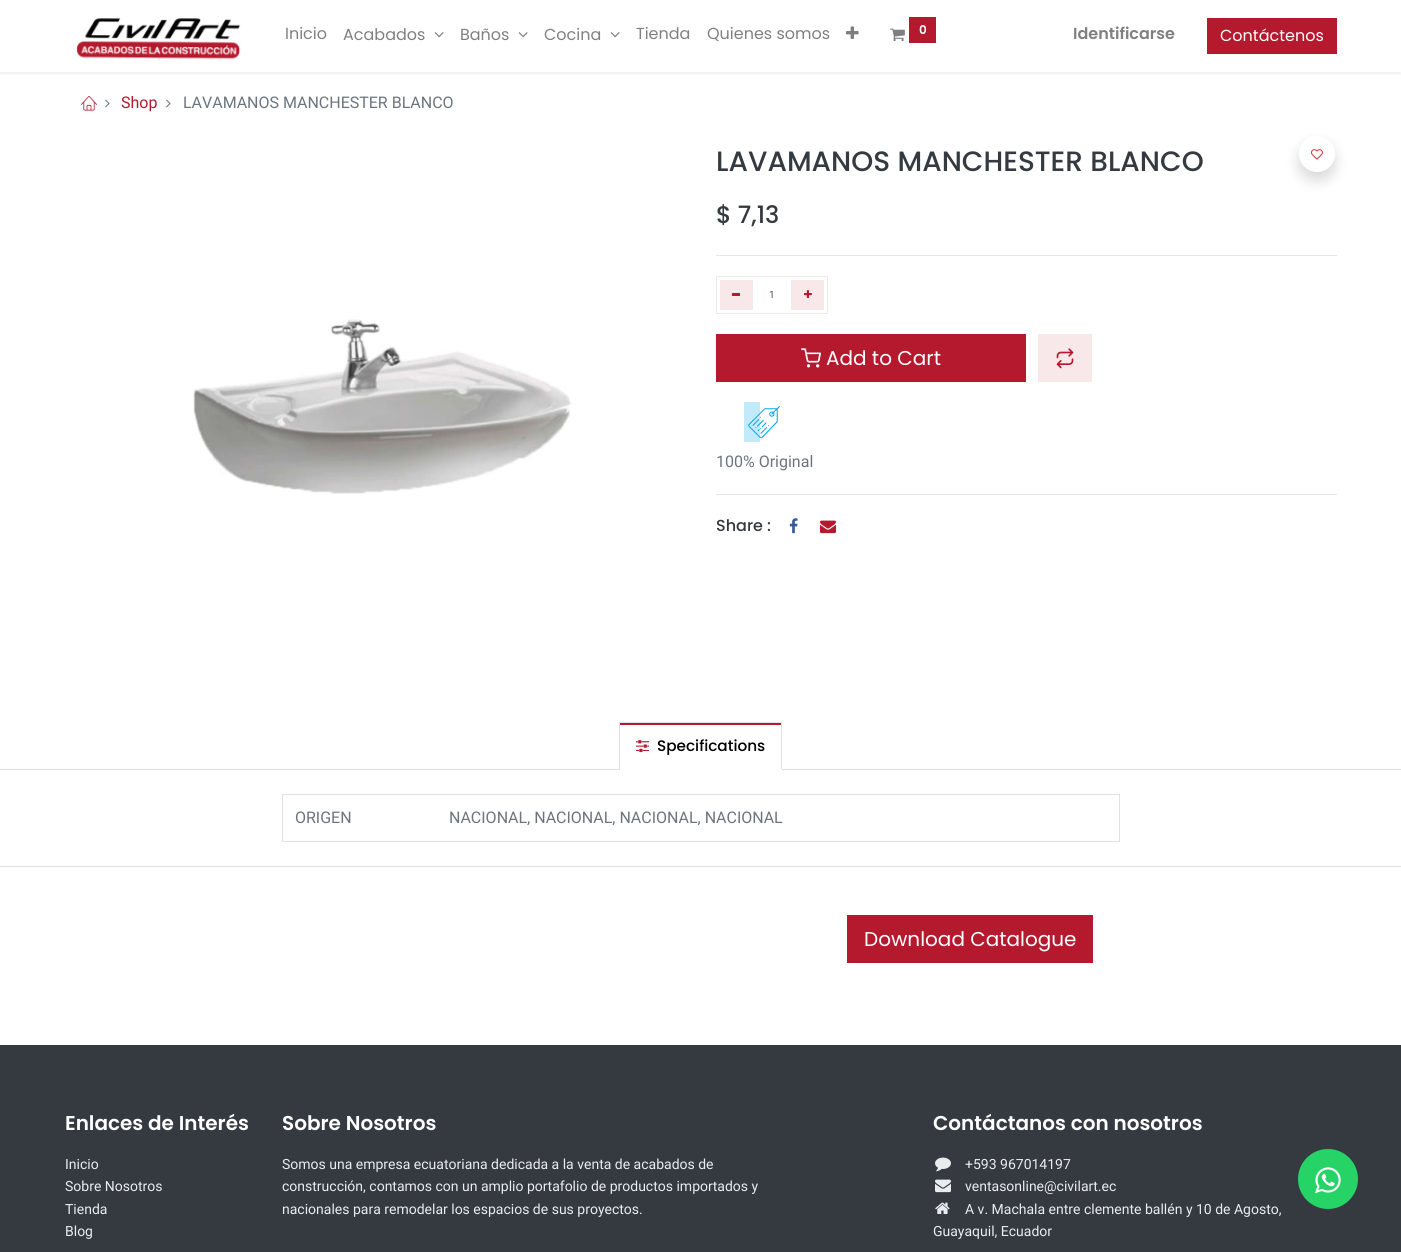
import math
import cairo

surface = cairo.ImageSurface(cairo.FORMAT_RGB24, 1401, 1252)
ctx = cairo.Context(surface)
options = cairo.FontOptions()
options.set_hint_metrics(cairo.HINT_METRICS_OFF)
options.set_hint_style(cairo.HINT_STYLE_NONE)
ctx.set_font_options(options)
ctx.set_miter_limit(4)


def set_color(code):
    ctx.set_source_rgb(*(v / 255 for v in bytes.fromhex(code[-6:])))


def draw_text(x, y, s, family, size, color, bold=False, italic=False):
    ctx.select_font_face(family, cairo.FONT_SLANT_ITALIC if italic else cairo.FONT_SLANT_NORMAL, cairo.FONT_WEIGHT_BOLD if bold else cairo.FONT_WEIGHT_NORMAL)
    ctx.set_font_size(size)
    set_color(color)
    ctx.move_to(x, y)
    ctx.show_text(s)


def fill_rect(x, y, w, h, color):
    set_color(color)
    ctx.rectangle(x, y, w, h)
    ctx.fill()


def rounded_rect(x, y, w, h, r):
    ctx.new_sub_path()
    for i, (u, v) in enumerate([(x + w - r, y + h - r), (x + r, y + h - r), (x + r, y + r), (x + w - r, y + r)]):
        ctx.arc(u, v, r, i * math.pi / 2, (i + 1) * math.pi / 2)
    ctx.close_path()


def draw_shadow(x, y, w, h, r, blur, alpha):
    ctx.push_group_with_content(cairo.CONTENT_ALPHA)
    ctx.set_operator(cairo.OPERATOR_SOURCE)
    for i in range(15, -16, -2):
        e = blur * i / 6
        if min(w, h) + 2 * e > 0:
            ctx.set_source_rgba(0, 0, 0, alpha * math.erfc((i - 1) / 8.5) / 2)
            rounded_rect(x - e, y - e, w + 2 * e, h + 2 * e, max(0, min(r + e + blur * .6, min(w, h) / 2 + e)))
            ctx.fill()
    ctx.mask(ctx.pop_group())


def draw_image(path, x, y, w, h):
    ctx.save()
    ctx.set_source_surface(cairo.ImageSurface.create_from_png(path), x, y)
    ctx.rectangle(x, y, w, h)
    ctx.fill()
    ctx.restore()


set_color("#ffffff")
ctx.paint()
ctx.save()
ctx.rectangle(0, 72, 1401, 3)
ctx.clip()
set_color("#000000")
draw_shadow(0, 2, 1401, 72, 0, 2, 0.07)
ctx.restore()
draw_image("assets/img1.png", 76, 18, 165, 42)
draw_text(285, 39, "Inicio", "Poppins", 16, "#808080")
draw_text(343, 40, "Acabados", "Poppins", 16, "#808080")
draw_image("assets/img2.png", 434, 32, 10, 6)
draw_text(460, 40, "Baños", "Poppins", 16, "#808080")
draw_image("assets/img2.png", 518, 32, 10, 6)
draw_text(544, 40, "Cocina", "Poppins", 16, "#808080")
draw_image("assets/img2.png", 610, 32, 10, 6)
draw_text(636, 39, "Tienda", "Poppins", 16, "#808080")
draw_text(707, 39, "Quienes somos", "Poppins", 16, "#808080")
draw_image("assets/img3.png", 846, 26, 13, 13)
draw_image("assets/img4.png", 890, 28, 15, 14)
fill_rect(909, 17, 27, 26, "#b5192d")
draw_text(919, 34, "0", "Poppins SemiBold", 12, "#ffffff")
draw_text(1073, 39, "Identificarse", "Poppins SemiBold", 16, "#808080")
fill_rect(1207, 18, 130, 36, "#b5192d")
draw_text(1220, 41, "Contáctenos", "Poppins", 16, "#ffffff")
draw_image("assets/img5.png", 81, 96, 16, 15)
draw_image("assets/img6.png", 105, 99, 5, 9)
draw_text(121, 108, "Shop", "Roboto", 16, "#b5192d")
draw_image("assets/img6.png", 166, 99, 5, 9)
draw_text(183, 108, "LAVAMANOS MANCHESTER BLANCO", "Roboto", 16, "#6c757d")
draw_image("assets/img7.png", 193, 319, 379, 175)
draw_text(716, 171, "LAVAMANOS MANCHESTER BLANCO", "Poppins Medium", 28, "#343a40")
draw_text(716, 223, "$ 7,13", "Poppins Medium", 24, "#343a40")
fill_rect(716, 255, 621, 1, "#e6e6e6")
ctx.rectangle(716.5, 276.5, 111, 37)
set_color("#e9ecef")
ctx.set_line_width(1)
ctx.stroke()
fill_rect(720, 280, 33, 30, "#f8e8ea")
fill_rect(732, 293, 8, 3, "#b5192d")
draw_text(769, 298, "1", "Roboto", 10, "#495057")
fill_rect(791, 280, 33, 30, "#f8e8ea")
draw_image("assets/img8.png", 804, 290, 8, 8)
set_color("#000000")
draw_shadow(1299, 144, 36, 36, 18, 7, 0.15)
set_color("#ffffff")
ctx.arc(1317, 154, 18, 0, 2 * math.pi)
ctx.fill()
draw_image("assets/img9.png", 1310, 149, 13, 11)
fill_rect(716, 334, 310, 48, "#b5192d")
draw_image("assets/img10.png", 801, 348, 20, 20)
draw_text(826, 365, "Add to Cart", "Poppins", 20, "#ffffff")
fill_rect(1038, 334, 54, 48, "#f8e8ea")
draw_image("assets/img11.png", 1056, 348, 18, 21)
draw_image("assets/img12.png", 744, 402, 36, 40)
draw_text(716, 467, "100% Original", "Roboto", 16, "#6c757d")
fill_rect(716, 494, 621, 1, "#e6e6e6")
draw_text(716, 531, "Share :", "Poppins Medium", 16, "#343a40")
draw_image("assets/img13.png", 789, 518, 9, 16)
draw_image("assets/img14.png", 820, 520, 16, 14)
fill_rect(0, 769, 1401, 1, "#dee2e6")
fill_rect(620, 723, 161, 2, "#b5192d")
fill_rect(619, 722, 163, 1, "#dee2e6")
fill_rect(781, 722, 1, 48, "#dee2e6")
fill_rect(619, 769, 163, 1, "#ffffff")
fill_rect(619, 722, 1, 48, "#dee2e6")
draw_image("assets/img15.png", 636, 740, 14, 13)
draw_text(657, 751, "Specifications", "Poppins Medium", 15.25, "#000000")
fill_rect(0, 866, 1401, 1, "#dee2e6")
fill_rect(282, 794, 838, 1, "#dee2e6")
fill_rect(1119, 794, 1, 48, "#dee2e6")
fill_rect(282, 841, 838, 1, "#dee2e6")
fill_rect(282, 794, 1, 48, "#dee2e6")
draw_text(295, 823, "ORIGEN", "Roboto", 16, "#6c757d")
draw_text(449, 823, "NACIONAL, NACIONAL, NACIONAL, NACIONAL", "Roboto", 16, "#6c757d")
fill_rect(847, 915, 246, 48, "#b5192d")
draw_text(864, 946, "Download Catalogue", "Poppins", 20, "#ffffff")
fill_rect(0, 1045, 1401, 207, "#343a40")
draw_text(65, 1130, "Enlaces de Interés", "Poppins SemiBold", 20, "#ffffff")
draw_text(65, 1169, "Inicio", "Roboto", 14, "#e9ecef")
draw_text(65, 1191, "Sobre Nosotros", "Roboto", 14, "#e9ecef")
draw_text(65, 1214, "Tienda", "Roboto", 14, "#e9ecef")
draw_text(65, 1236, "Blog", "Roboto", 14, "#e9ecef")
draw_text(282, 1130, "Sobre Nosotros", "Poppins SemiBold", 20, "#ffffff")
draw_text(282, 1169, "Somos una empresa ecuatoriana dedicada a la venta de acabados de", "Roboto", 14, "#e9ecef")
draw_text(282, 1191, "construcción, contamos con un amplio portafolio de productos importados y", "Roboto", 14, "#e9ecef")
draw_text(282, 1214, "nacionales para remodelar los espacios de sus proyectos.", "Roboto", 14, "#e9ecef")
draw_text(933, 1130, "Contáctanos con nosotros", "Poppins SemiBold", 20, "#ffffff")
draw_image("assets/img16.png", 935, 1157, 16, 15)
draw_text(965, 1169, "+593 967014197", "Roboto", 14, "#e9ecef")
draw_image("assets/img17.png", 935, 1179, 16, 14)
draw_text(965, 1191, "ventasonline@civilart.ec", "Roboto", 14, "#e9ecef")
draw_image("assets/img18.png", 935, 1202, 15, 12)
draw_text(965, 1214, "A v. Machala entre clemente ballén y 10 de Agosto,", "Roboto", 14, "#e9ecef")
draw_text(933, 1236, "Guayaquil, Ecuador", "Roboto", 14, "#e9ecef")
set_color("#25d366")
ctx.new_path()
ctx.arc(1328, 1179, 30, 0, 2 * math.pi)
ctx.fill()
draw_image("assets/img19.png", 1315, 1167, 26, 27)
surface.write_to_png("output.png")
